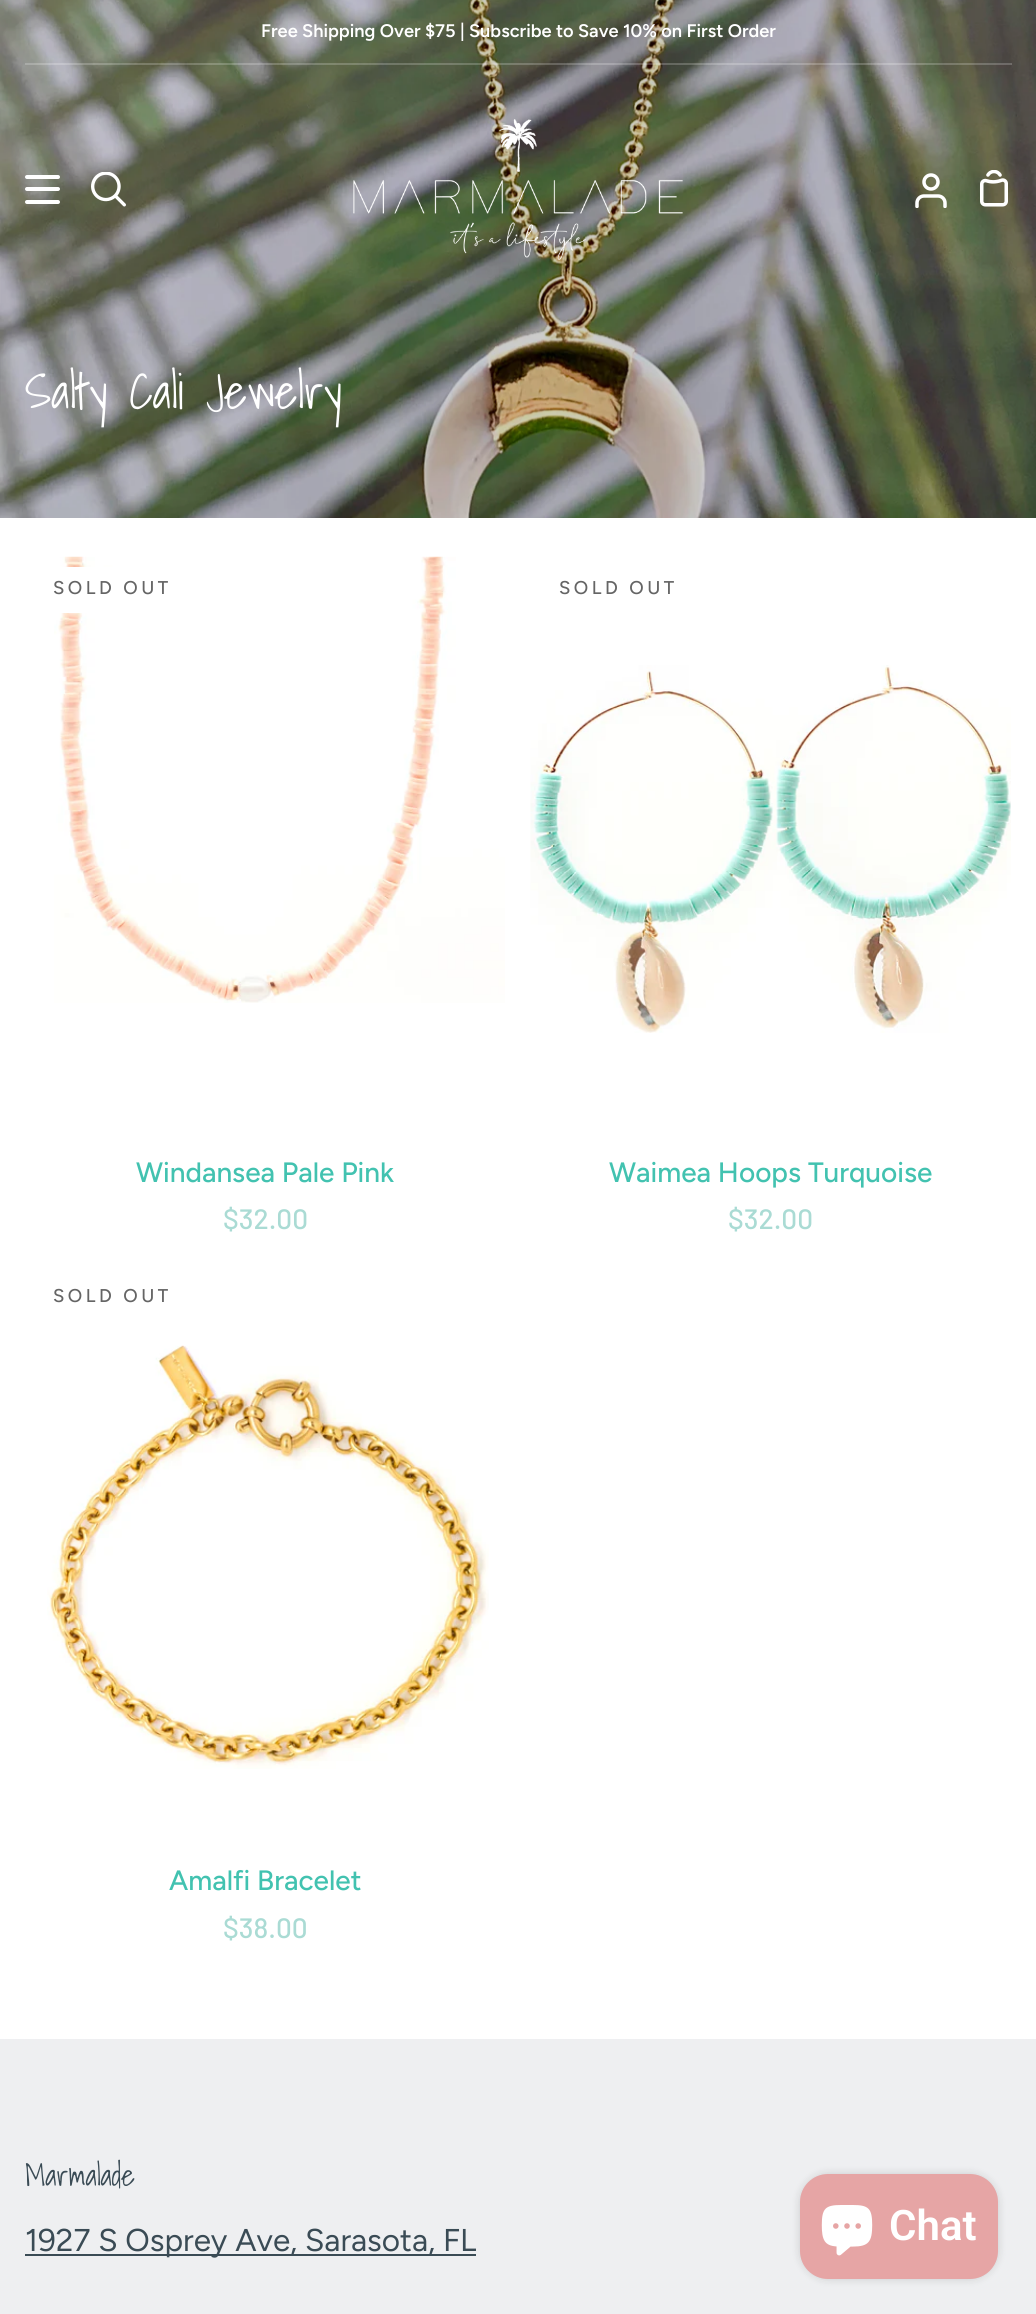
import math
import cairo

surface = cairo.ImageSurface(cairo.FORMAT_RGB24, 1036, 2314)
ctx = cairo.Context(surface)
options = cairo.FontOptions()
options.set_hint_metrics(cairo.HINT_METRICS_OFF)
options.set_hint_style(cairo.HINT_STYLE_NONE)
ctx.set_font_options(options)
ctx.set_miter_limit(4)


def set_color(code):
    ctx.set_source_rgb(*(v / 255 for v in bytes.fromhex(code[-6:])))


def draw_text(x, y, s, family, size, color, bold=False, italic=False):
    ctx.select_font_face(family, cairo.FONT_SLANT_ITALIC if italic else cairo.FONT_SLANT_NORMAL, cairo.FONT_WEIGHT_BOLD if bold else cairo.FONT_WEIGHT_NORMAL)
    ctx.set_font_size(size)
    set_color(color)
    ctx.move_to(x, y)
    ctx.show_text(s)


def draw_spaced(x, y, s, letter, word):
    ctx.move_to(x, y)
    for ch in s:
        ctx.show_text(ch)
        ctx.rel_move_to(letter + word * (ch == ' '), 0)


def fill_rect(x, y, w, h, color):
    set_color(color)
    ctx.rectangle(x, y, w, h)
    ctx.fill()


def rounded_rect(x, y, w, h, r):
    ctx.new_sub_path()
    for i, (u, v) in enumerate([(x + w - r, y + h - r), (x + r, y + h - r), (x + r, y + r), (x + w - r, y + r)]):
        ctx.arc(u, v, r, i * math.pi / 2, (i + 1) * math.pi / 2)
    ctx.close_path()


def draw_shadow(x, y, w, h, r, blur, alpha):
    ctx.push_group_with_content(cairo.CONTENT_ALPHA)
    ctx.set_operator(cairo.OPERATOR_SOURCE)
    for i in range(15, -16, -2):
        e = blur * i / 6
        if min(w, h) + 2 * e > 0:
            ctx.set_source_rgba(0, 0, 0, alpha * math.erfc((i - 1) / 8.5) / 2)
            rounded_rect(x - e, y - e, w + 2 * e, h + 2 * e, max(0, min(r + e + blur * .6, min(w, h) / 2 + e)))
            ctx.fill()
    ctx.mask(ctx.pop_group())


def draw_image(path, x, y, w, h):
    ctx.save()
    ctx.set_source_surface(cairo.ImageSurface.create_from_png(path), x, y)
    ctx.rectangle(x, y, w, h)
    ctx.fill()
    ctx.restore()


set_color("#ffffff")
ctx.paint()
draw_image("assets/img5.png", 0, 0, 1036, 518)
draw_text(261, 37, "Free Shipping Over $75 | Subscribe to Save 10% on First Order", "Figtree SemiBold", 18.2, "#ffffff")
ctx.set_source_rgba(1, 1, 1, 0.2)
ctx.rectangle(25, 63, 987, 2)
ctx.fill()
set_color("#ffffff")
rounded_rect(25, 175, 35, 4, 2)
ctx.fill()
rounded_rect(25, 187, 35, 4, 2)
ctx.fill()
rounded_rect(25, 200, 35, 4, 2)
ctx.fill()
draw_image("assets/img1.png", 91, 172, 35, 35)
draw_image("assets/img2.png", 353, 119, 330, 141)
draw_image("assets/img3.png", 915, 173, 32, 35)
draw_image("assets/img4.png", 980, 170, 28, 37)
draw_text(25, 409, "Salty Cali Jewelry", "Shadows Into Light", 49, "#ffffff")
draw_image("assets/img6.png", 54, 556, 451, 447)
rounded_rect(35, 567, 154, 46, 5)
ctx.fill()
ctx.select_font_face("Figtree Medium")
ctx.set_font_size(18.5)
set_color("#656565")
draw_spaced(53, 594, "SOLD OUT", 3.5, 0)
draw_text(136, 1182, "Windansea Pale Pink", "Figtree Medium", 28, "#42c2b0")
draw_text(223, 1229, "$32.00", "Barlow Medium", 28, "#aadbd4")
ctx.select_font_face("Figtree Medium")
ctx.set_font_size(18.5)
set_color("#656565")
draw_spaced(559, 594, "SOLD OUT", 3.5, 0)
draw_image("assets/img7.png", 530, 665, 481, 368)
draw_text(609, 1182, "Waimea Hoops Turquoise", "Figtree Medium", 28, "#42c2b0")
draw_text(728, 1229, "$32.00", "Barlow Medium", 28, "#aadbd4")
ctx.select_font_face("Figtree Medium")
ctx.set_font_size(18.5)
set_color("#656565")
draw_spaced(53, 1302, "SOLD OUT", 3.5, 0)
draw_image("assets/img8.png", 47, 1345, 442, 424)
draw_text(169, 1890, "Amalfi Bracelet", "Figtree Medium", 28, "#42c2b0")
draw_text(223, 1938, "$38.00", "Barlow Medium", 28, "#aadbd4")
fill_rect(0, 2039, 1036, 275, "#eeeff1")
draw_text(25, 2186, "Marmalade", "Shadows Into Light", 30, "#3a4b55")
fill_rect(25, 2254, 451, 2, "#3a4b55")
draw_text(25, 2251, "1927 S Osprey Ave, Sarasota, FL", "Figtree", 31.5, "#3a4b55")
set_color("#000000")
draw_shadow(800, 2174, 198, 105, 28, 4.5, 0.15)
set_color("#e6a5a5")
rounded_rect(800, 2174, 198, 105, 28)
ctx.fill()
draw_image("assets/img9.png", 821, 2205, 52, 51)
draw_text(889, 2240, "Chat", "Roboto SemiBold", 42, "#ffffff")
surface.write_to_png("output.png")
